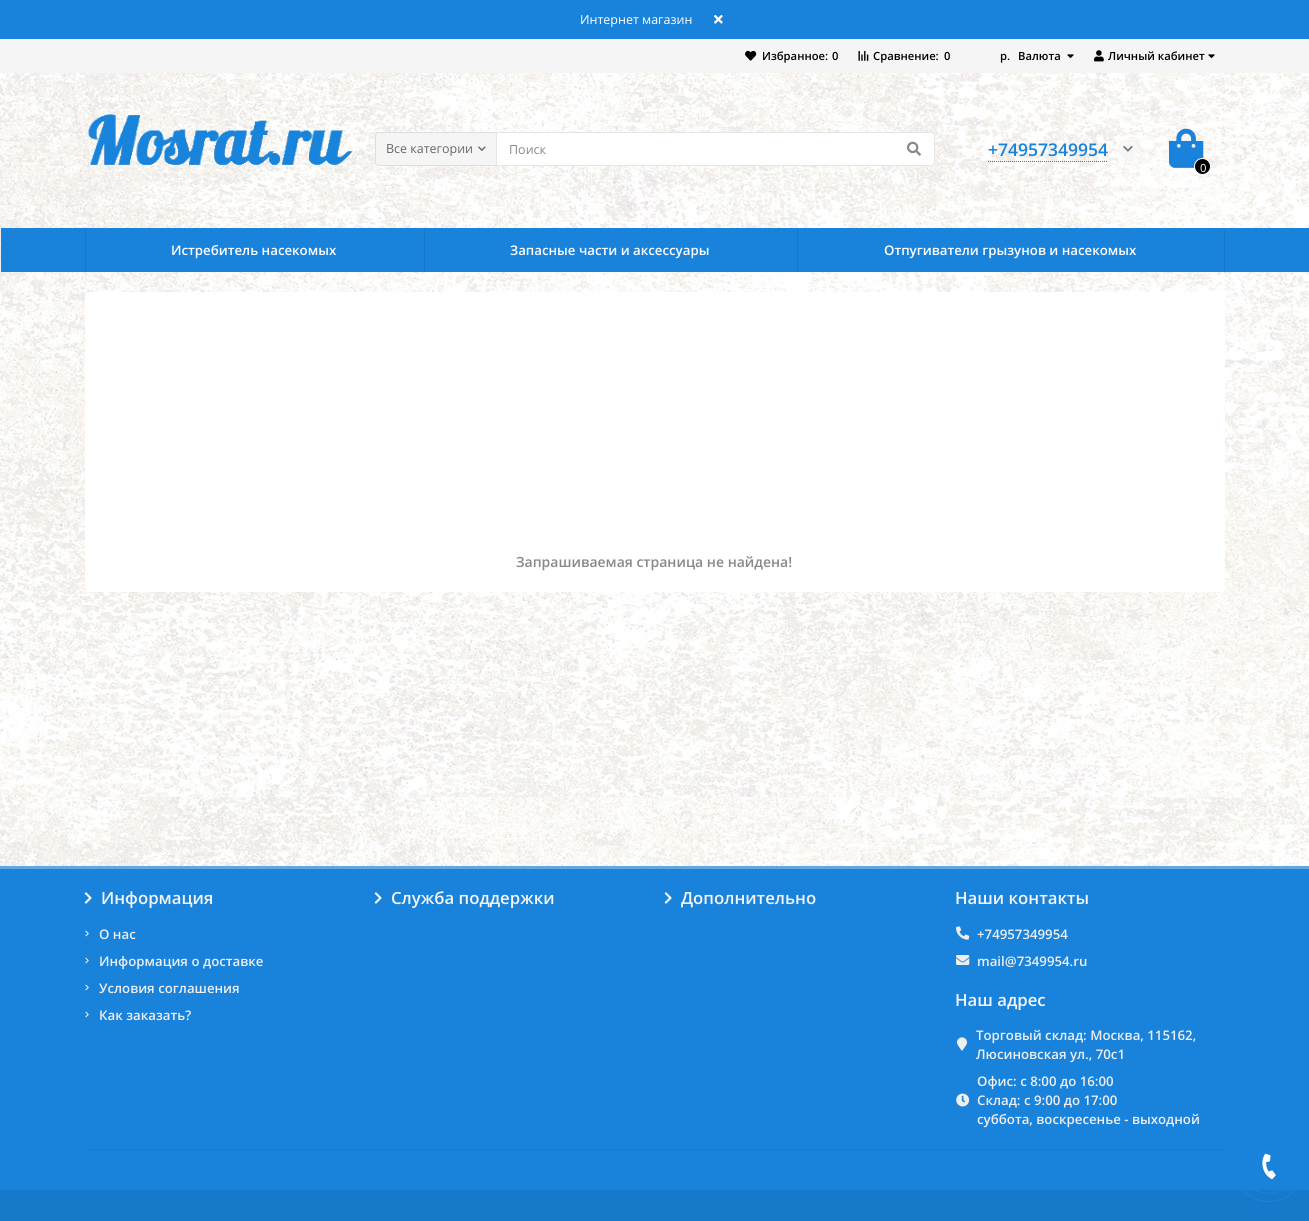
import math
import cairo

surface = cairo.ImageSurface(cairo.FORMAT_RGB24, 1309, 1221)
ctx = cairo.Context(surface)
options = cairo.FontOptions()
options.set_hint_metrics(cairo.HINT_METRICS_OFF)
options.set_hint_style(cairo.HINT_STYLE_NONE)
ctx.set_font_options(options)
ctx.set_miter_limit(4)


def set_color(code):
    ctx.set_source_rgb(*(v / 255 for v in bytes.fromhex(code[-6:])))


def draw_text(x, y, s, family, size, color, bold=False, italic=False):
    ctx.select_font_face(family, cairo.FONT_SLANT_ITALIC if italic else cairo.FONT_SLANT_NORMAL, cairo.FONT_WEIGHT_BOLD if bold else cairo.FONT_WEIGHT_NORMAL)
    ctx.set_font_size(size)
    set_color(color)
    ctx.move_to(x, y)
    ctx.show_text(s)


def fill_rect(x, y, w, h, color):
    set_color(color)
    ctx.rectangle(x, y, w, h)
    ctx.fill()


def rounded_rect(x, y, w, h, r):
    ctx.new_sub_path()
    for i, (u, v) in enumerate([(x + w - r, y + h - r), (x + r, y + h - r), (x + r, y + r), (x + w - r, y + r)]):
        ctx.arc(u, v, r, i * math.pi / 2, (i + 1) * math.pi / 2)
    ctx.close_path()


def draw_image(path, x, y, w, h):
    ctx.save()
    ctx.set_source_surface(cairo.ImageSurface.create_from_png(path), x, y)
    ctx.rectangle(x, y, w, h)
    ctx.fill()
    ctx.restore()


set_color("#ffffff")
ctx.paint()
draw_image("assets/img1.png", 0, 73, 1309, 793)
fill_rect(0, 0, 1309, 39, "#1983db")
draw_text(580, 24, "Интернет магазин", "Open Sans", 12.5, "#ffffff")
draw_image("assets/img2.png", 714, 15, 9, 9)
fill_rect(0, 39, 1309, 34, "#f5f5f5")
draw_image("assets/img3.png", 745, 50, 12, 11)
draw_text(762, 60, "Избранное:", "Open Sans SemiBold", 11.25, "#000000")
draw_text(832, 60, "0", "Open Sans SemiBold", 11.25, "#000000")
draw_image("assets/img4.png", 858, 51, 11, 10)
draw_text(873, 60, "Сравнение:", "Open Sans SemiBold", 11.25, "#000000")
draw_text(944, 60, "0", "Open Sans SemiBold", 11.25, "#000000")
draw_text(1000, 60, "р.", "Open Sans SemiBold", 11.25, "#000000")
draw_text(1018, 60, "Валюта", "Open Sans SemiBold", 11.25, "#000000")
draw_image("assets/img5.png", 1067, 54, 7, 4)
draw_image("assets/img6.png", 1094, 50, 10, 12)
draw_text(1108, 60, "Личный кабинет", "Open Sans SemiBold", 11.25, "#000000")
draw_image("assets/img5.png", 1208, 54, 7, 4)
draw_image("assets/img7.png", 88, 114, 265, 51)
set_color("#f5f5f5")
ctx.new_path()
ctx.move_to(379, 132)
ctx.line_to(496, 132)
ctx.line_to(496, 166)
ctx.line_to(379, 166)
ctx.curve_to(377, 166, 375, 164, 375, 162)
ctx.line_to(375, 136)
ctx.curve_to(375, 134, 377, 132, 379, 132)
ctx.close_path()
ctx.fill()
ctx.set_source_rgba(0, 0, 0, 0.1)
ctx.set_fill_rule(cairo.FILL_RULE_EVEN_ODD)
ctx.new_path()
ctx.move_to(379, 132)
ctx.line_to(496, 132)
ctx.line_to(496, 166)
ctx.line_to(379, 166)
ctx.curve_to(377, 166, 375, 164, 375, 162)
ctx.line_to(375, 136)
ctx.curve_to(375, 134, 377, 132, 379, 132)
ctx.close_path()
ctx.move_to(379, 133)
ctx.line_to(496, 133)
ctx.line_to(496, 165)
ctx.line_to(379, 165)
ctx.curve_to(377, 165, 376, 164, 376, 162)
ctx.line_to(376, 136)
ctx.curve_to(376, 134, 377, 133, 379, 133)
ctx.close_path()
ctx.fill()
draw_text(386, 153, "Все категории", "Open Sans", 12.5, "#666666")
draw_image("assets/img8.png", 478, 146, 8, 5)
set_color("#ffffff")
ctx.new_path()
ctx.move_to(496.5, 132.5)
ctx.line_to(931, 132.5)
ctx.curve_to(933, 132.5, 934.5, 134, 934.5, 136)
ctx.line_to(934.5, 162)
ctx.curve_to(934.5, 164, 933, 165.5, 931, 165.5)
ctx.line_to(496.5, 165.5)
ctx.close_path()
ctx.fill_preserve()
set_color("#e5e5e5")
ctx.set_line_width(1)
ctx.stroke()
draw_text(509, 154, "Поиск", "Open Sans", 12.5, "#888888")
draw_image("assets/img9.png", 907, 141, 14, 15)
draw_text(988, 156, "+74957349954", "Open Sans SemiBold", 17.5, "#1983db")
ctx.new_path()
ctx.move_to(988, 161.5)
ctx.line_to(1108, 161.5)
ctx.set_dash([1, 1])
ctx.stroke()
set_color("#f7f7f7")
ctx.arc(1128, 149, 10, 0, 2 * math.pi)
ctx.fill()
draw_image("assets/img10.png", 1123, 146, 10, 6)
draw_image("assets/img11.png", 1169, 128, 35, 40)
set_color("#000000")
ctx.arc(1202.5, 166.5, 8, 0, 2 * math.pi)
ctx.fill_preserve()
set_color("#ffffff")
ctx.set_dash([])
ctx.stroke()
draw_text(1200, 172, "0", "Open Sans", 11.25, "#ffffff")
fill_rect(1, 228, 1308, 44, "#1983db")
fill_rect(85, 228, 1, 44, "#1779c9")
draw_text(171, 255, "Истребитель насекомых", "Open Sans SemiBold", 13.25, "#ffffff")
fill_rect(424, 228, 1, 44, "#1779c9")
draw_text(510, 255, "Запасные части и аксессуары", "Open Sans SemiBold", 13.25, "#ffffff")
fill_rect(797, 228, 1, 44, "#1779c9")
fill_rect(1224, 228, 1, 44, "#1779c9")
draw_text(884, 255, "Отпугиватели грызунов и насекомых", "Open Sans SemiBold", 13.25, "#ffffff")
rounded_rect(85, 292, 1140, 300, 4)
ctx.fill()
draw_text(516, 567, "Запрашиваемая страница не найдена!", "Open Sans SemiBold", 14, "#888888")
fill_rect(0, 869, 1309, 321, "#1983db")
fill_rect(0, 866, 1309, 3, "#5ea8e6")
draw_image("assets/img12.png", 84, 892, 8, 12)
draw_text(101, 904, "Информация", "Open Sans SemiBold", 16.75, "#f5f5f5")
draw_image("assets/img13.png", 85, 930, 4, 7)
draw_text(99, 939, "О нас", "Open Sans SemiBold", 13.25, "#eeeeee")
draw_image("assets/img13.png", 85, 957, 4, 7)
draw_text(99, 966, "Информация о доставке", "Open Sans SemiBold", 13.25, "#eeeeee")
draw_image("assets/img13.png", 85, 984, 4, 7)
draw_text(99, 993, "Условия соглашения", "Open Sans SemiBold", 13.25, "#eeeeee")
draw_image("assets/img13.png", 85, 1011, 4, 7)
draw_text(99, 1020, "Как заказать?", "Open Sans SemiBold", 13.25, "#eeeeee")
draw_image("assets/img12.png", 374, 892, 8, 12)
draw_text(391, 904, "Служба поддержки", "Open Sans SemiBold", 16.75, "#f5f5f5")
draw_image("assets/img12.png", 664, 892, 8, 12)
draw_text(681, 904, "Дополнительно", "Open Sans SemiBold", 16.75, "#f5f5f5")
draw_text(955, 904, "Наши контакты", "Open Sans SemiBold", 16.75, "#f5f5f5")
draw_image("assets/img14.png", 956, 926, 14, 14)
draw_text(977, 939, "+74957349954", "Open Sans SemiBold", 13.25, "#eeeeee")
draw_image("assets/img15.png", 956, 955, 14, 10)
draw_text(977, 966, "mail@7349954.ru", "Open Sans SemiBold", 13.25, "#eeeeee")
draw_text(955, 1006, "Наш адрес", "Open Sans SemiBold", 16.75, "#f5f5f5")
draw_image("assets/img16.png", 957, 1037, 10, 14)
draw_text(976, 1040, "Торговый склад: Москва, 115162,", "Open Sans SemiBold", 13.25, "#eeeeee")
draw_text(976, 1059, "Люсиновская ул., 70с1", "Open Sans SemiBold", 13.25, "#eeeeee")
draw_text(977, 1086, "Офис: с 8:00 до 16:00", "Open Sans SemiBold", 13.25, "#eeeeee")
draw_image("assets/img17.png", 956, 1093, 14, 14)
draw_text(977, 1105, "Склад: с 9:00 до 17:00", "Open Sans SemiBold", 13.25, "#eeeeee")
draw_text(977, 1124, "суббота, воскресенье - выходной", "Open Sans SemiBold", 13.25, "#eeeeee")
fill_rect(85, 1149, 1140, 1, "#1779c9")
fill_rect(0, 1190, 1309, 31, "#1779c9")
draw_image("assets/img18.png", 1262, 1153, 14, 27)
ctx.new_path()
ctx.move_to(1288.5, 1185.5)
ctx.curve_to(1278, 1196, 1260, 1196, 1249.5, 1185.5)
set_color("#1983db")
ctx.stroke()
ctx.new_path()
ctx.move_to(1294, 1191)
ctx.curve_to(1280.5, 1205, 1257.5, 1205, 1244, 1191)
ctx.stroke()
surface.write_to_png("output.png")
